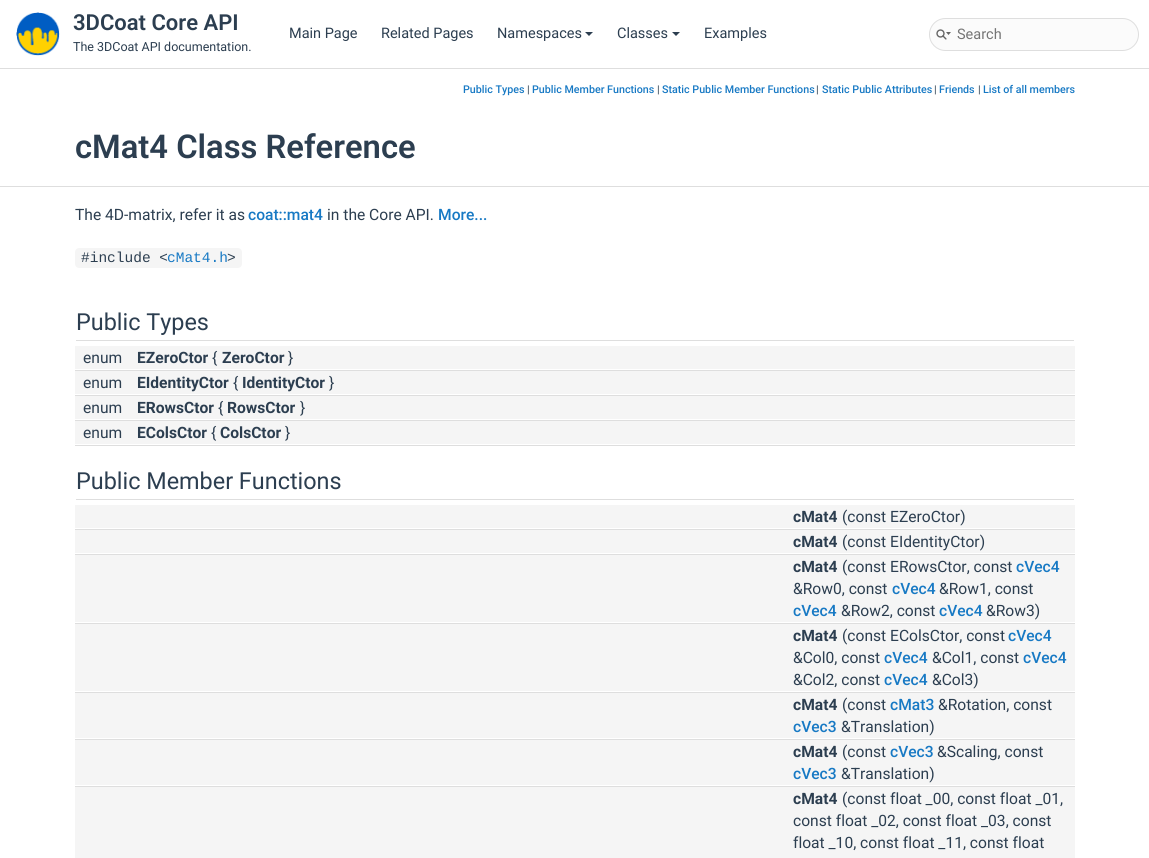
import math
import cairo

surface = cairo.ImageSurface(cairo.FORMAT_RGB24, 1149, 858)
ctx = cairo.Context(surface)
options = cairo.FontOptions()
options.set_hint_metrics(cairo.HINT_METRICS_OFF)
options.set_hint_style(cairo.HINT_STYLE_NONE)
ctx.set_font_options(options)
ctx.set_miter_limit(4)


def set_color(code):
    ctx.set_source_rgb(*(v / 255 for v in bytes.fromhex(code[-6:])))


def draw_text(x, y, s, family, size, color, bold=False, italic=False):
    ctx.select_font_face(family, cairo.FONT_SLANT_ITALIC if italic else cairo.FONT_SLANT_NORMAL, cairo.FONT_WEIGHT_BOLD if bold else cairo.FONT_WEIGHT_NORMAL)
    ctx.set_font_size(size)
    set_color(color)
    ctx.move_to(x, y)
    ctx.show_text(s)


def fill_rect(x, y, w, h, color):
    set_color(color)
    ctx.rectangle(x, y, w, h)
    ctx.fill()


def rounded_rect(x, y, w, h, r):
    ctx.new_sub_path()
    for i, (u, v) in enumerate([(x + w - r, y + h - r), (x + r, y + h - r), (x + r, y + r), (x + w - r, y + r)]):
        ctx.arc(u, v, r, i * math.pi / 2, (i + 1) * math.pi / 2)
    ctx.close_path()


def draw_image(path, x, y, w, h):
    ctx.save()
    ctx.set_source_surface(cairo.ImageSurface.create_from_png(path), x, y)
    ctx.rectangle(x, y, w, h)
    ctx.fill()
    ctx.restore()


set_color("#ffffff")
ctx.paint()
fill_rect(0, 68, 1149, 1, "#dedede")
draw_image("assets/img1.png", 16, 12, 44, 44)
draw_text(73, 30, "3DCoat Core API", "Roboto SemiBold", 22, "#2c3e50")
draw_text(73, 51, "The 3DCoat API documentation.", "Roboto", 12.5, "#2c3e50")
draw_text(289, 38, "Main Page", "Roboto", 14.5, "#2c3e50")
draw_text(381, 38, "Related Pages", "Roboto", 14.5, "#2c3e50")
draw_text(497, 38, "Namespaces", "Roboto", 14.5, "#2c3e50")
ctx.new_path()
ctx.move_to(585, 32)
ctx.line_to(593, 32)
ctx.line_to(589, 36)
ctx.close_path()
ctx.fill()
draw_text(617, 38, "Classes", "Roboto", 14.5, "#2c3e50")
ctx.new_path()
ctx.move_to(672, 32)
ctx.line_to(680, 32)
ctx.line_to(676, 36)
ctx.close_path()
ctx.fill()
draw_text(704, 38, "Examples", "Roboto", 14.5, "#2c3e50")
set_color("#fbfbfb")
rounded_rect(929.5, 18.5, 209, 32, 16)
ctx.fill_preserve()
set_color("#dedede")
ctx.set_line_width(1)
ctx.stroke()
draw_image("assets/img2.png", 936, 29, 15, 11)
draw_text(957, 39, "Search", "Roboto", 14.5, "#757575")
fill_rect(0, 186, 1149, 1, "#dedede")
draw_text(463, 93, "Public Types", "Roboto Medium", 10.7, "#1779c4")
draw_text(527, 93, "|", "Roboto", 10.7, "#2c3e50")
draw_text(532, 93, "Public Member Functions", "Roboto Medium", 10.7, "#1779c4")
draw_text(657, 93, "|", "Roboto", 10.7, "#2c3e50")
draw_text(662, 93, "Static Public Member Functions", "Roboto Medium", 10.7, "#1779c4")
draw_text(816, 93, "|", "Roboto", 10.7, "#2c3e50")
draw_text(822, 93, "Static Public Attributes", "Roboto Medium", 10.7, "#1779c4")
draw_text(934, 93, "|", "Roboto", 10.7, "#2c3e50")
draw_text(939, 93, "Friends", "Roboto Medium", 10.7, "#1779c4")
draw_text(978, 93, "|", "Roboto", 10.7, "#2c3e50")
draw_text(983, 93, "List of all members", "Roboto Medium", 10.7, "#1779c4")
draw_text(75, 158, "cMat4 Class Reference", "Roboto SemiBold", 32.75, "#2c3e50")
draw_text(75, 220, "The 4D-matrix, refer it as", "Roboto", 15.6, "#2c3e50")
draw_text(248, 220, "coat::mat4", "Roboto Medium", 15.6, "#1779c4")
draw_text(327, 220, "in the Core API.", "Roboto", 15.6, "#2c3e50")
draw_text(438, 220, "More...", "Roboto Medium", 15.6, "#1779c4")
set_color("#f5f5f5")
ctx.new_path()
ctx.move_to(79, 248)
ctx.line_to(167, 248)
ctx.line_to(167, 268)
ctx.line_to(79, 268)
ctx.curve_to(77, 268, 75, 266, 75, 264)
ctx.line_to(75, 252)
ctx.curve_to(75, 250, 77, 248, 79, 248)
ctx.close_path()
ctx.fill()
draw_text(81, 262, "#include <", "Liberation Mono", 14.5, "#2c3e50")
fill_rect(167, 248, 60, 20, "#f5f5f5")
draw_text(167, 262, "cMat4.h", "Liberation Mono", 14.5, "#1779c4")
set_color("#f5f5f5")
ctx.new_path()
ctx.move_to(227, 248)
ctx.line_to(238, 248)
ctx.curve_to(240, 248, 242, 250, 242, 252)
ctx.line_to(242, 264)
ctx.curve_to(242, 266, 240, 268, 238, 268)
ctx.line_to(227, 268)
ctx.close_path()
ctx.fill()
draw_text(227, 262, ">", "Liberation Mono", 14.5, "#2c3e50")
fill_rect(76, 340, 998, 1, "#dedede")
draw_text(76, 330, "Public Types", "Roboto", 23.4, "#2c3e50")
fill_rect(75, 346, 1000, 23, "#f5f5f5")
draw_text(83, 363, "enum", "Roboto", 15.6, "#2c3e50")
draw_text(137, 363, "EZeroCtor", "Roboto", 15.6, "#2c3e50", bold=True)
draw_text(212, 363, "{", "Roboto", 15.6, "#2c3e50")
draw_text(222, 363, "ZeroCtor", "Roboto", 15.6, "#2c3e50", bold=True)
draw_text(288, 363, "}", "Roboto", 15.6, "#2c3e50")
fill_rect(75, 370, 1000, 1, "#dedede")
fill_rect(75, 371, 1000, 23, "#f5f5f5")
draw_text(83, 388, "enum", "Roboto", 15.6, "#2c3e50")
draw_text(137, 388, "EIdentityCtor", "Roboto", 15.6, "#2c3e50", bold=True)
draw_text(233, 388, "{", "Roboto", 15.6, "#2c3e50")
draw_text(242, 388, "IdentityCtor", "Roboto", 15.6, "#2c3e50", bold=True)
draw_text(329, 388, "}", "Roboto", 15.6, "#2c3e50")
fill_rect(75, 395, 1000, 1, "#dedede")
fill_rect(75, 396, 1000, 23, "#f5f5f5")
draw_text(83, 413, "enum", "Roboto", 15.6, "#2c3e50")
draw_text(137, 413, "ERowsCtor", "Roboto", 15.6, "#2c3e50", bold=True)
draw_text(218, 413, "{", "Roboto", 15.6, "#2c3e50")
draw_text(227, 413, "RowsCtor", "Roboto", 15.6, "#2c3e50", bold=True)
draw_text(300, 413, "}", "Roboto", 15.6, "#2c3e50")
fill_rect(75, 420, 1000, 1, "#dedede")
fill_rect(75, 421, 1000, 23, "#f5f5f5")
draw_text(83, 438, "enum", "Roboto", 15.6, "#2c3e50")
draw_text(137, 438, "EColsCtor", "Roboto", 15.6, "#2c3e50", bold=True)
draw_text(211, 438, "{", "Roboto", 15.6, "#2c3e50")
draw_text(220, 438, "ColsCtor", "Roboto", 15.6, "#2c3e50", bold=True)
draw_text(285, 438, "}", "Roboto", 15.6, "#2c3e50")
fill_rect(75, 445, 1000, 1, "#dedede")
fill_rect(76, 499, 998, 1, "#dedede")
draw_text(76, 489, "Public Member Functions", "Roboto", 23.4, "#2c3e50")
fill_rect(75, 505, 1000, 23, "#f5f5f5")
draw_text(793, 522, "cMat4", "Roboto", 15.6, "#2c3e50", bold=True)
draw_text(842, 522, "(const EZeroCtor)", "Roboto", 15.6, "#2c3e50")
fill_rect(75, 529, 1000, 1, "#dedede")
fill_rect(75, 530, 1000, 23, "#f5f5f5")
draw_text(793, 547, "cMat4", "Roboto", 15.6, "#2c3e50", bold=True)
draw_text(842, 547, "(const EIdentityCtor)", "Roboto", 15.6, "#2c3e50")
fill_rect(75, 554, 1000, 1, "#dedede")
fill_rect(75, 555, 1000, 67, "#f5f5f5")
draw_text(793, 572, "cMat4", "Roboto", 15.6, "#2c3e50", bold=True)
draw_text(842, 572, "(const ERowsCtor, const", "Roboto", 15.6, "#2c3e50")
draw_text(1016, 572, "cVec4", "Roboto Medium", 15.6, "#1779c4")
draw_text(793, 594, "&Row0, const", "Roboto", 15.6, "#2c3e50")
draw_text(892, 594, "cVec4", "Roboto Medium", 15.6, "#1779c4")
draw_text(939, 594, "&Row1, const", "Roboto", 15.6, "#2c3e50")
draw_text(793, 616, "cVec4", "Roboto Medium", 15.6, "#1779c4")
draw_text(841, 616, "&Row2, const", "Roboto", 15.6, "#2c3e50")
draw_text(939, 616, "cVec4", "Roboto Medium", 15.6, "#1779c4")
draw_text(986, 616, "&Row3)", "Roboto", 15.6, "#2c3e50")
fill_rect(75, 623, 1000, 1, "#dedede")
fill_rect(75, 624, 1000, 67, "#f5f5f5")
draw_text(793, 641, "cMat4", "Roboto", 15.6, "#2c3e50", bold=True)
draw_text(842, 641, "(const EColsCtor, const", "Roboto", 15.6, "#2c3e50")
draw_text(1008, 641, "cVec4", "Roboto Medium", 15.6, "#1779c4")
draw_text(793, 663, "&Col0, const", "Roboto", 15.6, "#2c3e50")
draw_text(884, 663, "cVec4", "Roboto Medium", 15.6, "#1779c4")
draw_text(932, 663, "&Col1, const", "Roboto", 15.6, "#2c3e50")
draw_text(1023, 663, "cVec4", "Roboto Medium", 15.6, "#1779c4")
draw_text(793, 685, "&Col2, const", "Roboto", 15.6, "#2c3e50")
draw_text(884, 685, "cVec4", "Roboto Medium", 15.6, "#1779c4")
draw_text(932, 685, "&Col3)", "Roboto", 15.6, "#2c3e50")
fill_rect(75, 692, 1000, 1, "#dedede")
fill_rect(75, 693, 1000, 45, "#f5f5f5")
draw_text(793, 710, "cMat4", "Roboto", 15.6, "#2c3e50", bold=True)
draw_text(842, 710, "(const", "Roboto", 15.6, "#2c3e50")
draw_text(890, 710, "cMat3", "Roboto Medium", 15.6, "#1779c4")
draw_text(938, 710, "&Rotation, const", "Roboto", 15.6, "#2c3e50")
draw_text(793, 732, "cVec3", "Roboto Medium", 15.6, "#1779c4")
draw_text(841, 732, "&Translation)", "Roboto", 15.6, "#2c3e50")
fill_rect(75, 739, 1000, 1, "#dedede")
fill_rect(75, 740, 1000, 45, "#f5f5f5")
draw_text(793, 757, "cMat4", "Roboto", 15.6, "#2c3e50", bold=True)
draw_text(842, 757, "(const", "Roboto", 15.6, "#2c3e50")
draw_text(890, 757, "cVec3", "Roboto Medium", 15.6, "#1779c4")
draw_text(937, 757, "&Scaling, const", "Roboto", 15.6, "#2c3e50")
draw_text(793, 779, "cVec3", "Roboto Medium", 15.6, "#1779c4")
draw_text(841, 779, "&Translation)", "Roboto", 15.6, "#2c3e50")
fill_rect(75, 786, 1000, 1, "#dedede")
fill_rect(75, 787, 1000, 71, "#f5f5f5")
draw_text(793, 804, "cMat4", "Roboto", 15.6, "#2c3e50", bold=True)
draw_text(842, 804, "(const float _00, const float _01,", "Roboto", 15.6, "#2c3e50")
draw_text(793, 826, "const float _02, const float _03, const", "Roboto", 15.6, "#2c3e50")
draw_text(793, 848, "float _10, const float _11, const float", "Roboto", 15.6, "#2c3e50")
surface.write_to_png("output.png")
